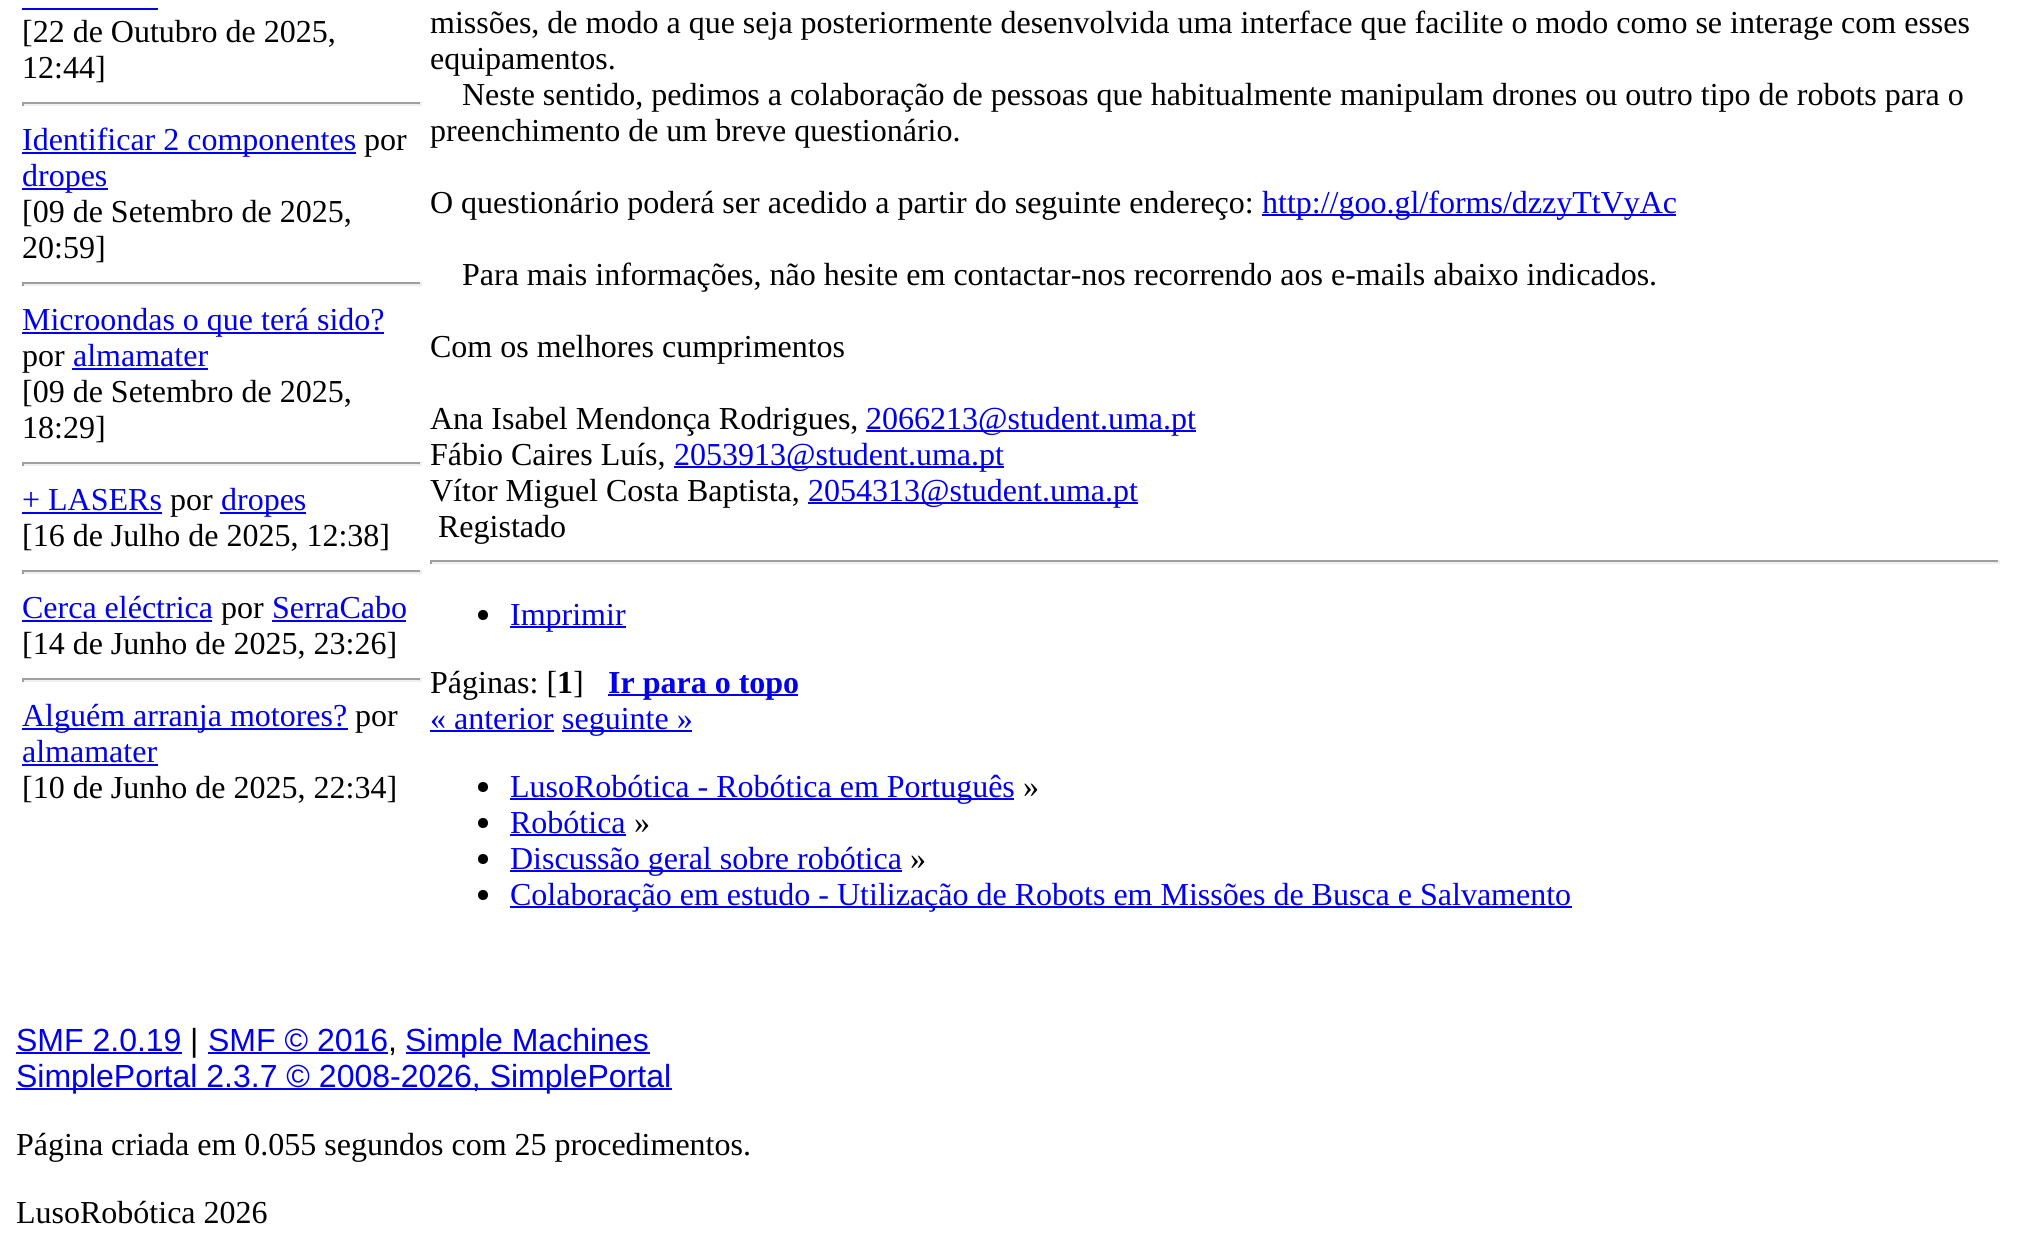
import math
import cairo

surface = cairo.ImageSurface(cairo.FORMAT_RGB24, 2021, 1246)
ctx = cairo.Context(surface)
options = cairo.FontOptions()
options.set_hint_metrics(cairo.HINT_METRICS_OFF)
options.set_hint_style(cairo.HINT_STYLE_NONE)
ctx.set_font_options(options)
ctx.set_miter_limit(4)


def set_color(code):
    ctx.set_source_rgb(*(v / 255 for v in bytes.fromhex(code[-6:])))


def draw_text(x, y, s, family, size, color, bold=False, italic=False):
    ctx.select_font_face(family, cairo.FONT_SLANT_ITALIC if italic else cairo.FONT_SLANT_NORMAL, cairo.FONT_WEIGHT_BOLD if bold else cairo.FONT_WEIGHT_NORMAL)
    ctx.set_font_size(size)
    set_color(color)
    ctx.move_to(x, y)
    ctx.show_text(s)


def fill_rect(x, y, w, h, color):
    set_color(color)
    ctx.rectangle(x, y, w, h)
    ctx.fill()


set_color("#ffffff")
ctx.paint()
draw_text(22, 42, "[22 de Outubro de 2025,", "Liberation Serif", 32, "#000000")
fill_rect(22, 8, 136, 2, "#0000ee")
draw_text(22, 78, "12:44]", "Liberation Serif", 32, "#000000")
fill_rect(22, 102, 400, 2, "#9f9f9f")
fill_rect(420, 102, 2, 4, "#eeeeee")
fill_rect(22, 104, 400, 2, "#eeeeee")
fill_rect(22, 102, 2, 4, "#9f9f9f")
fill_rect(22, 152, 334, 2, "#0000ee")
draw_text(22, 150, "Identificar 2 componentes", "Liberation Serif", 32, "#0000ee")
draw_text(364, 150, "por", "Liberation Serif", 32, "#000000")
fill_rect(22, 188, 86, 2, "#0000ee")
draw_text(22, 186, "dropes", "Liberation Serif", 32, "#0000ee")
draw_text(22, 222, "[09 de Setembro de 2025,", "Liberation Serif", 32, "#000000")
draw_text(22, 258, "20:59]", "Liberation Serif", 32, "#000000")
fill_rect(22, 282, 400, 2, "#9f9f9f")
fill_rect(420, 282, 2, 4, "#eeeeee")
fill_rect(22, 284, 400, 2, "#eeeeee")
fill_rect(22, 282, 2, 4, "#9f9f9f")
fill_rect(22, 332, 362, 2, "#0000ee")
draw_text(22, 330, "Microondas o que terá sido?", "Liberation Serif", 32, "#0000ee")
draw_text(22, 366, "por", "Liberation Serif", 32, "#000000")
fill_rect(72, 368, 136, 2, "#0000ee")
draw_text(73, 366, "almamater", "Liberation Serif", 32, "#0000ee")
draw_text(22, 402, "[09 de Setembro de 2025,", "Liberation Serif", 32, "#000000")
draw_text(22, 438, "18:29]", "Liberation Serif", 32, "#000000")
fill_rect(22, 462, 400, 2, "#9f9f9f")
fill_rect(420, 462, 2, 4, "#eeeeee")
fill_rect(22, 464, 400, 2, "#eeeeee")
fill_rect(22, 462, 2, 4, "#9f9f9f")
draw_text(22, 510, "+ LASERs", "Liberation Serif", 32, "#0000ee")
fill_rect(22, 512, 140, 2, "#0000ee")
draw_text(170, 510, "por", "Liberation Serif", 32, "#000000")
fill_rect(220, 512, 86, 2, "#0000ee")
draw_text(221, 510, "dropes", "Liberation Serif", 32, "#0000ee")
draw_text(22, 546, "[16 de Julho de 2025, 12:38]", "Liberation Serif", 32, "#000000")
fill_rect(22, 570, 400, 2, "#9f9f9f")
fill_rect(420, 570, 2, 4, "#eeeeee")
fill_rect(22, 572, 400, 2, "#eeeeee")
fill_rect(22, 570, 2, 4, "#9f9f9f")
draw_text(22, 618, "Cerca eléctrica", "Liberation Serif", 32, "#0000ee")
fill_rect(22, 620, 190, 2, "#0000ee")
draw_text(221, 618, "por", "Liberation Serif", 32, "#000000")
fill_rect(272, 620, 134, 2, "#0000ee")
draw_text(272, 618, "SerraCabo", "Liberation Serif", 32, "#0000ee")
draw_text(22, 654, "[14 de Junho de 2025, 23:26]", "Liberation Serif", 32, "#000000")
fill_rect(22, 678, 400, 2, "#9f9f9f")
fill_rect(420, 678, 2, 4, "#eeeeee")
fill_rect(22, 680, 400, 2, "#eeeeee")
fill_rect(22, 678, 2, 4, "#9f9f9f")
fill_rect(22, 728, 326, 2, "#0000ee")
draw_text(22, 726, "Alguém arranja motores?", "Liberation Serif", 32, "#0000ee")
draw_text(355, 726, "por", "Liberation Serif", 32, "#000000")
draw_text(22, 762, "almamater", "Liberation Serif", 32, "#0000ee")
fill_rect(22, 764, 136, 2, "#0000ee")
draw_text(22, 798, "[10 de Junho de 2025, 22:34]", "Liberation Serif", 32, "#000000")
draw_text(430, 33, "missões, de modo a que seja posteriormente desenvolvida uma interface que facilite o modo como se interage com esses", "Liberation Serif", 32, "#000000")
draw_text(430, 69, "equipamentos.", "Liberation Serif", 32, "#000000")
draw_text(462, 105, "Neste sentido, pedimos a colaboração de pessoas que habitualmente manipulam drones ou outro tipo de robots para o", "Liberation Serif", 32, "#000000")
draw_text(430, 141, "preenchimento de um breve questionário.", "Liberation Serif", 32, "#000000")
draw_text(430, 213, "O questionário poderá ser acedido a partir do seguinte endereço:", "Liberation Serif", 32, "#000000")
fill_rect(1262, 214, 414, 2, "#0000ee")
draw_text(1262, 213, "http://goo.gl/forms/dzzyTtVyAc", "Liberation Serif", 32, "#0000ee")
draw_text(462, 285, "Para mais informações, não hesite em contactar-nos recorrendo aos e-mails abaixo indicados.", "Liberation Serif", 32, "#000000")
draw_text(430, 357, "Com os melhores cumprimentos", "Liberation Serif", 32, "#000000")
draw_text(430, 429, "Ana Isabel Mendonça Rodrigues,", "Liberation Serif", 32, "#000000")
fill_rect(866, 430, 330, 2, "#0000ee")
draw_text(866, 429, "2066213@student.uma.pt", "Liberation Serif", 32, "#0000ee")
draw_text(430, 465, "Fábio Caires Luís,", "Liberation Serif", 32, "#000000")
fill_rect(674, 466, 330, 2, "#0000ee")
draw_text(674, 465, "2053913@student.uma.pt", "Liberation Serif", 32, "#0000ee")
draw_text(430, 501, "Vítor Miguel Costa Baptista,", "Liberation Serif", 32, "#000000")
fill_rect(808, 502, 330, 2, "#0000ee")
draw_text(808, 501, "2054313@student.uma.pt", "Liberation Serif", 32, "#0000ee")
draw_text(438, 537, "Registado", "Liberation Serif", 32, "#000000")
fill_rect(430, 560, 1570, 2, "#9f9f9f")
fill_rect(1998, 560, 2, 4, "#eeeeee")
fill_rect(430, 562, 1570, 2, "#eeeeee")
fill_rect(430, 560, 2, 4, "#9f9f9f")
set_color("#000000")
ctx.new_path()
ctx.arc(483, 615, 5, 0, 2 * math.pi)
ctx.fill()
fill_rect(510, 626, 116, 2, "#0000ee")
draw_text(510, 625, "Imprimir", "Liberation Serif", 32, "#0000ee")
draw_text(430, 693, "Páginas: [", "Liberation Serif", 32, "#000000")
draw_text(557, 693, "1", "Liberation Serif", 32, "#000000", bold=True)
draw_text(573, 693, "]", "Liberation Serif", 32, "#000000")
fill_rect(608, 694, 190, 2, "#0000ee")
draw_text(608, 693, "Ir para o topo", "Liberation Serif", 32, "#0000ee", bold=True)
draw_text(430, 729, "« anterior", "Liberation Serif", 32, "#0000ee")
fill_rect(430, 730, 124, 2, "#0000ee")
fill_rect(562, 730, 130, 2, "#0000ee")
draw_text(562, 729, "seguinte »", "Liberation Serif", 32, "#0000ee")
set_color("#000000")
ctx.new_path()
ctx.arc(483, 787, 5, 0, 2 * math.pi)
ctx.fill()
fill_rect(510, 798, 504, 2, "#0000ee")
draw_text(510, 797, "LusoRobótica - Robótica em Português", "Liberation Serif", 32, "#0000ee")
draw_text(1023, 797, "»", "Liberation Serif", 32, "#000000")
ctx.new_path()
ctx.arc(483, 823, 5, 0, 2 * math.pi)
ctx.fill()
draw_text(510, 833, "Robótica", "Liberation Serif", 32, "#0000ee")
fill_rect(510, 834, 116, 2, "#0000ee")
draw_text(634, 833, "»", "Liberation Serif", 32, "#000000")
ctx.new_path()
ctx.arc(483, 859, 5, 0, 2 * math.pi)
ctx.fill()
fill_rect(510, 870, 392, 2, "#0000ee")
draw_text(510, 869, "Discussão geral sobre robótica", "Liberation Serif", 32, "#0000ee")
draw_text(910, 869, "»", "Liberation Serif", 32, "#000000")
ctx.new_path()
ctx.arc(483, 895, 5, 0, 2 * math.pi)
ctx.fill()
fill_rect(510, 906, 1062, 2, "#0000ee")
draw_text(510, 905, "Colaboração em estudo - Utilização de Robots em Missões de Busca e Salvamento", "Liberation Serif", 32, "#0000ee")
draw_text(16, 1051, "SMF 2.0.19", "Liberation Sans", 32, "#0000ee")
fill_rect(16, 1052, 166, 2, "#0000ee")
draw_text(190, 1051, "|", "Liberation Sans", 32, "#000000")
draw_text(208, 1051, "SMF © 2016", "Liberation Sans", 32, "#0000ee")
draw_text(388, 1051, ",", "Liberation Sans", 32, "#000000")
fill_rect(208, 1052, 180, 2, "#0000ee")
fill_rect(406, 1052, 244, 2, "#0000ee")
draw_text(405, 1051, "Simple Machines", "Liberation Sans", 32, "#0000ee")
fill_rect(16, 1088, 656, 2, "#0000ee")
draw_text(16, 1087, "SimplePortal 2.3.7 © 2008-2026, SimplePortal", "Liberation Sans", 32, "#0000ee")
draw_text(16, 1155, "Página criada em 0.055 segundos com 25 procedimentos.", "Liberation Serif", 32, "#000000")
draw_text(16, 1223, "LusoRobótica 2026", "Liberation Serif", 32, "#000000")
surface.write_to_png("output.png")
